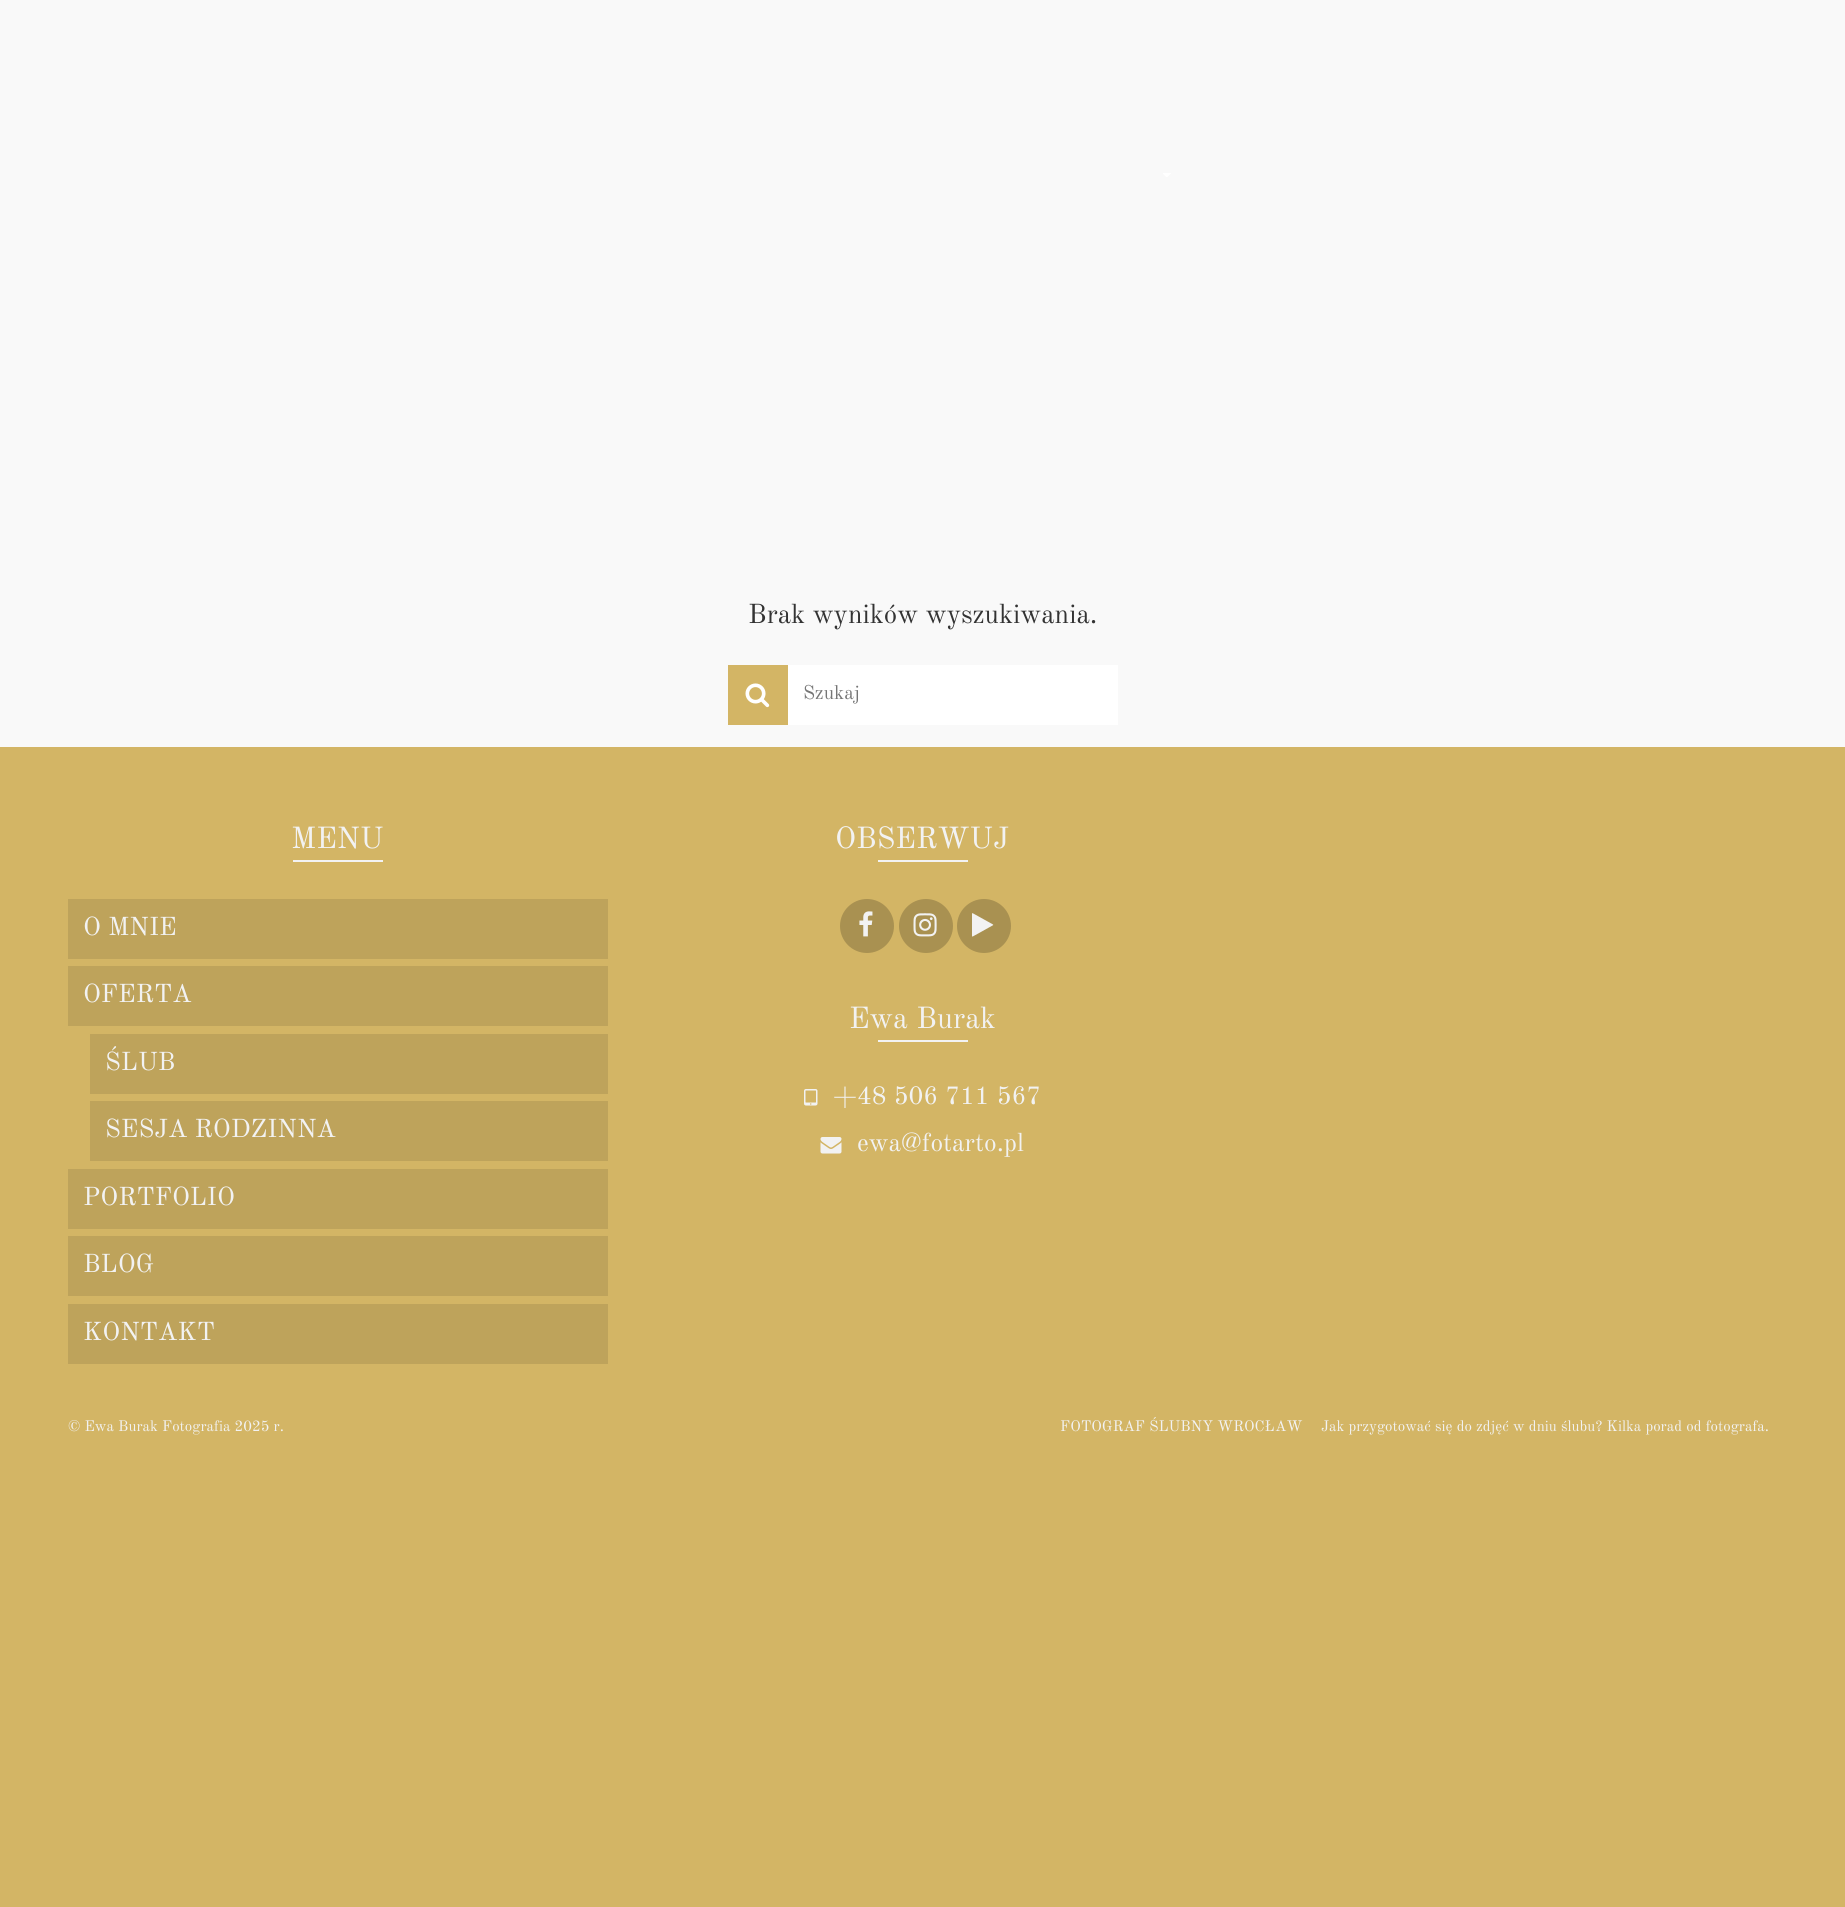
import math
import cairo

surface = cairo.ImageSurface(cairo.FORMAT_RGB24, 1845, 1907)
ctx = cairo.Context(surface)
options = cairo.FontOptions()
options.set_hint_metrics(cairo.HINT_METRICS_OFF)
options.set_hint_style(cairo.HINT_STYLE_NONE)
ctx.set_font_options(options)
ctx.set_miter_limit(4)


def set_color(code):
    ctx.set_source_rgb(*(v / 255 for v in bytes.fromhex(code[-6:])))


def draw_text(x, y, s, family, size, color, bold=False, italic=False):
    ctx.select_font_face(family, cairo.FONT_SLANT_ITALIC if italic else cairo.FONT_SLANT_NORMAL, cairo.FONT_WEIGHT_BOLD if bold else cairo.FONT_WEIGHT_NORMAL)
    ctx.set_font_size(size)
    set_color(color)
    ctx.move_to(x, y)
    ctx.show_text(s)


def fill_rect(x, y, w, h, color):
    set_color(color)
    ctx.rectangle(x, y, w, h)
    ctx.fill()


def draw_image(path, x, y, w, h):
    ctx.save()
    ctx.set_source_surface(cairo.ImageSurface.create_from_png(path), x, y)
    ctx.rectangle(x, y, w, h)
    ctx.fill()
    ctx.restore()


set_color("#d3b565")
ctx.paint()
fill_rect(0, 0, 1845, 747, "#f9f9f9")
draw_image("assets/img1.png", 1163, 173, 8, 4)
draw_text(748, 623, "Brak wyników wyszukiwania.", "Old Standard TT", 27, "#333333")
fill_rect(728, 665, 60, 60, "#d3b565")
draw_image("assets/img2.png", 745, 683, 25, 25)
fill_rect(788, 665, 330, 60, "#ffffff")
draw_text(803, 699, "Szukaj", "Old Standard TT", 19.5, "#757575")
draw_text(291, 848, "MENU", "Old Standard TT", 30, "#f2f2f2")
fill_rect(293, 860, 90, 2, "#f2f2f2")
fill_rect(68, 899, 540, 60, "#bea35b")
draw_text(83, 935, "O MNIE", "Old Standard TT", 25.5, "#f2f2f2")
fill_rect(68, 966, 540, 60, "#bea35b")
draw_text(83, 1002, "OFERTA", "Old Standard TT", 25.5, "#f2f2f2")
fill_rect(90, 1034, 518, 60, "#bea35b")
draw_text(105, 1070, "ŚLUB", "Old Standard TT", 25.5, "#f2f2f2")
fill_rect(90, 1101, 518, 60, "#bea35b")
draw_text(105, 1137, "SESJA RODZINNA", "Old Standard TT", 25.5, "#f2f2f2")
fill_rect(68, 1169, 540, 60, "#bea35b")
draw_text(83, 1205, "PORTFOLIO", "Old Standard TT", 25.5, "#f2f2f2")
fill_rect(68, 1236, 540, 60, "#bea35b")
draw_text(83, 1272, "BLOG", "Old Standard TT", 25.5, "#f2f2f2")
fill_rect(68, 1304, 540, 60, "#bea35b")
draw_text(83, 1340, "KONTAKT", "Old Standard TT", 25.5, "#f2f2f2")
draw_text(835, 848, "OBSERWUJ", "Old Standard TT", 30, "#f2f2f2")
fill_rect(878, 860, 90, 2, "#f2f2f2")
set_color("#a99151")
ctx.new_path()
ctx.arc(867, 926, 27, 0, 2 * math.pi)
ctx.fill()
draw_image("assets/img3.png", 859, 911, 14, 26)
ctx.arc(926, 926, 27, 0, 2 * math.pi)
ctx.fill()
draw_image("assets/img4.png", 913, 913, 24, 24)
ctx.arc(984, 926, 27, 0, 2 * math.pi)
ctx.fill()
draw_image("assets/img5.png", 972, 913, 22, 24)
draw_text(849, 1028, "Ewa Burak", "Old Standard TT", 30, "#f2f2f2")
fill_rect(878, 1040, 90, 2, "#f2f2f2")
draw_image("assets/img6.png", 804, 1089, 14, 17)
draw_text(833, 1104, "+48 506 711 567", "Old Standard TT", 25.5, "#f2f2f2")
draw_image("assets/img7.png", 820, 1137, 22, 17)
draw_text(857, 1151, "ewa@fotarto.pl", "Old Standard TT", 25.5, "#f2f2f2")
draw_text(68, 1431, "© Ewa Burak Fotografia 2025 r.", "Old Standard TT", 15, "#f2f2f2")
draw_text(1060, 1431, "FOTOGRAF ŚLUBNY WROCŁAW", "Old Standard TT", 15, "#f2f2f2")
draw_text(1321, 1431, "Jak przygotować się do zdjęć w dniu ślubu? Kilka porad od fotografa.", "Old Standard TT", 15, "#f2f2f2")
surface.write_to_png("output.png")
